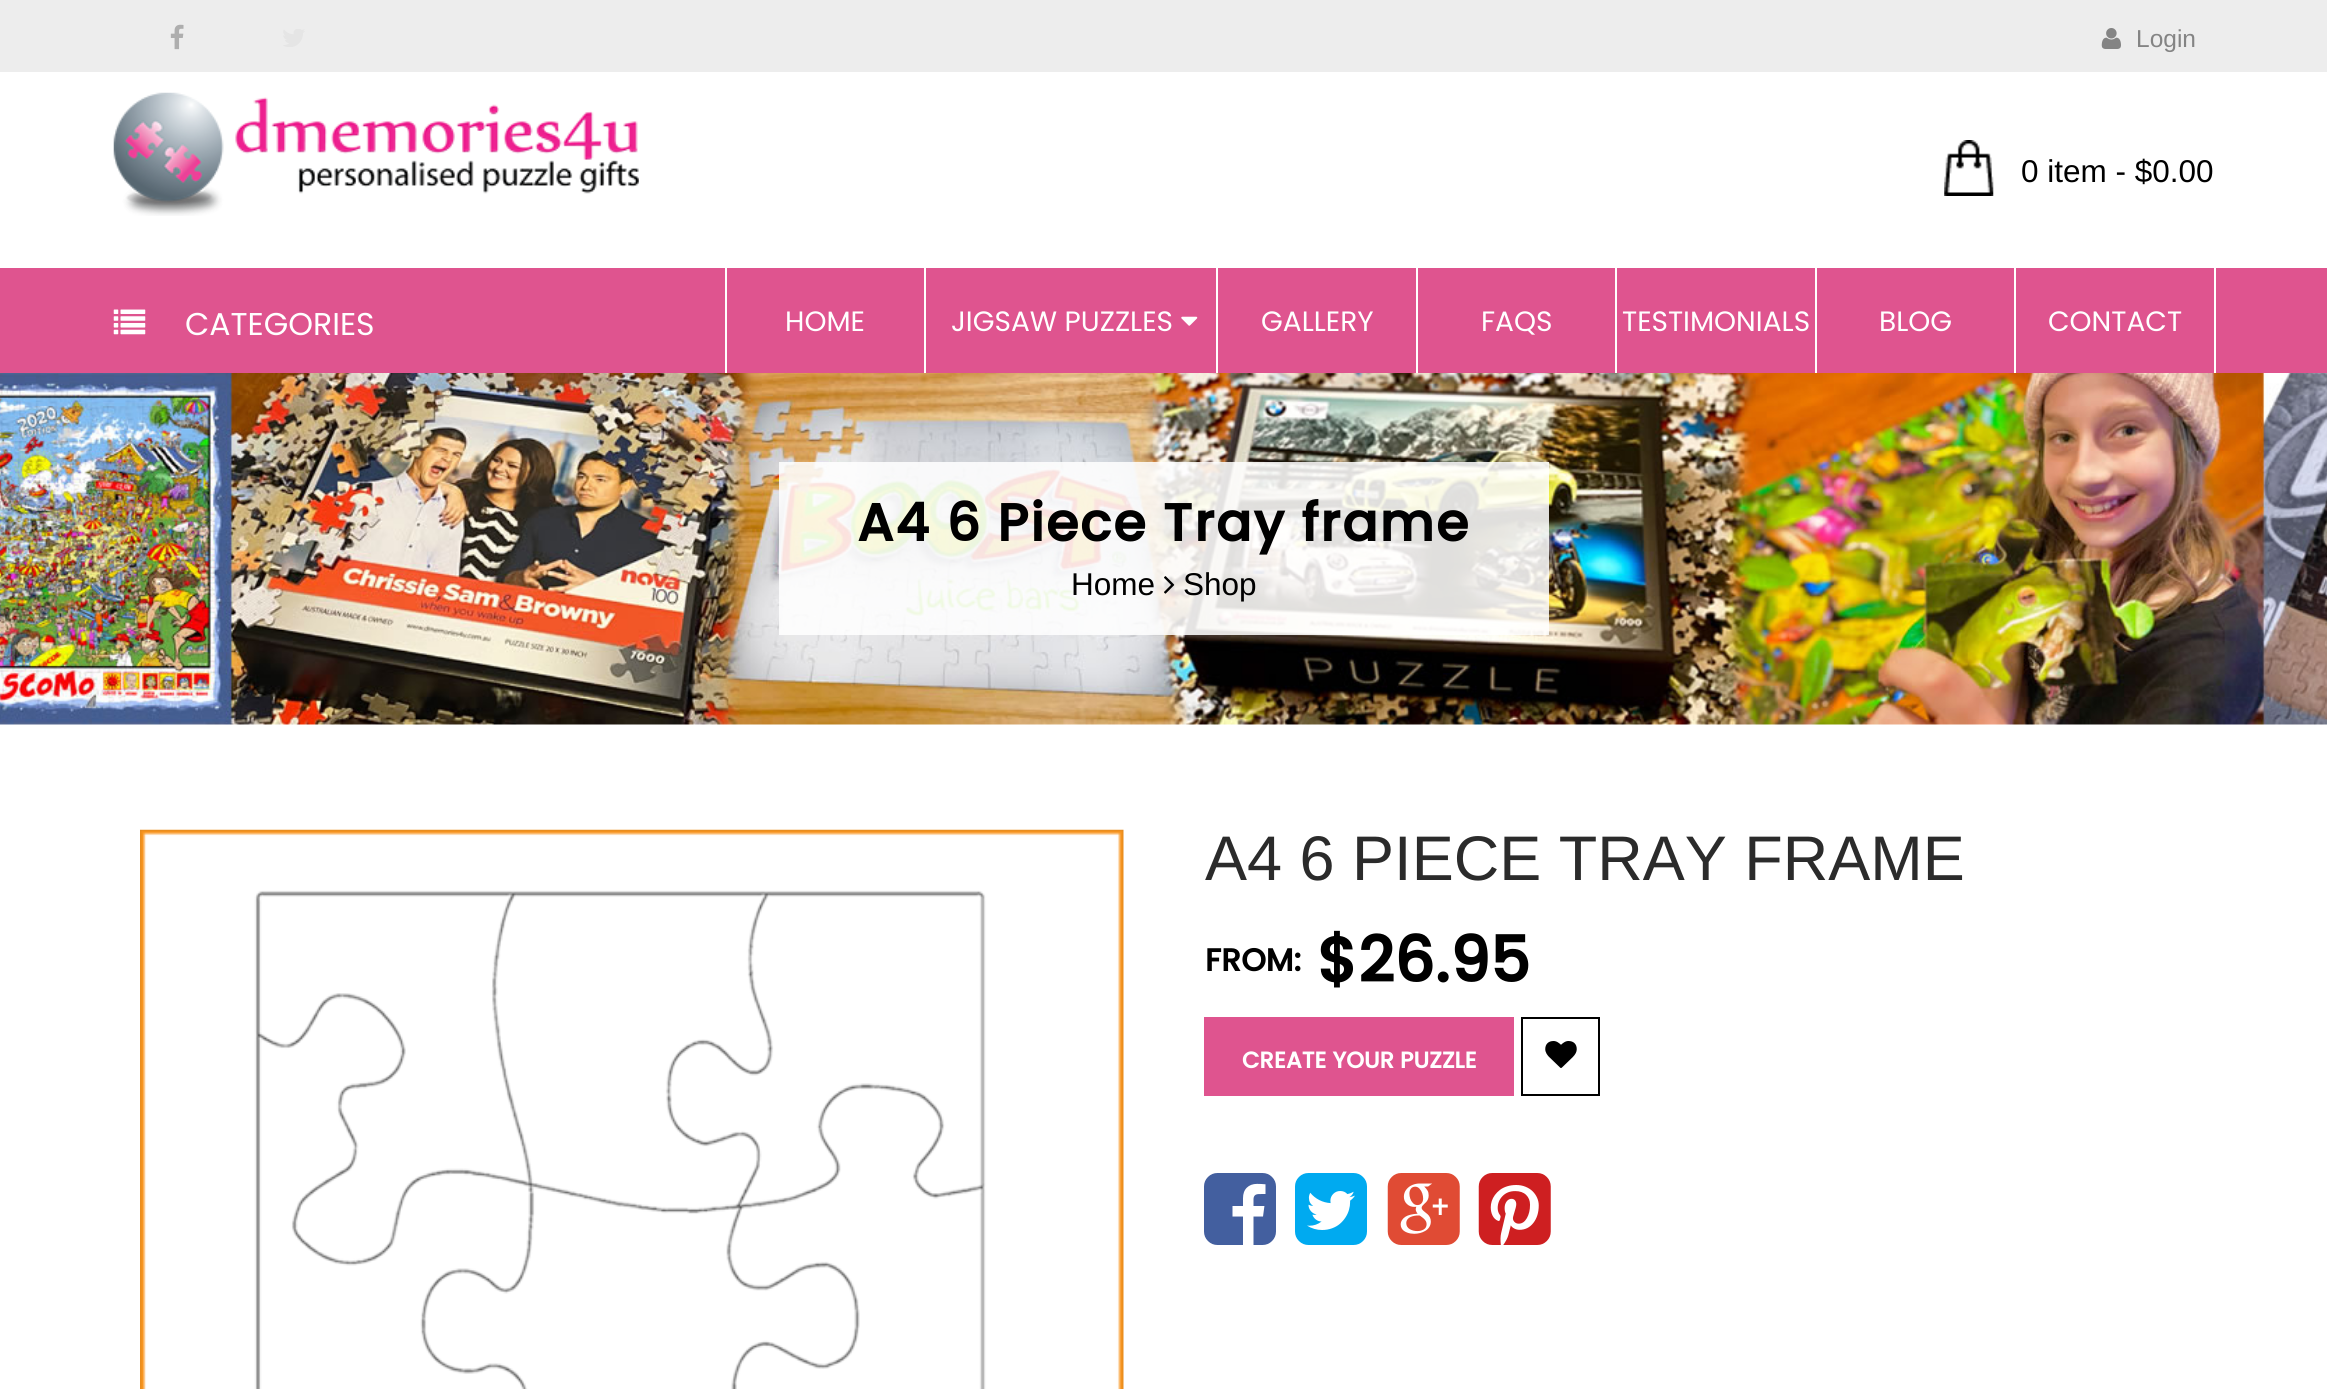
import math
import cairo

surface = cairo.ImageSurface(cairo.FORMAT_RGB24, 2327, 1389)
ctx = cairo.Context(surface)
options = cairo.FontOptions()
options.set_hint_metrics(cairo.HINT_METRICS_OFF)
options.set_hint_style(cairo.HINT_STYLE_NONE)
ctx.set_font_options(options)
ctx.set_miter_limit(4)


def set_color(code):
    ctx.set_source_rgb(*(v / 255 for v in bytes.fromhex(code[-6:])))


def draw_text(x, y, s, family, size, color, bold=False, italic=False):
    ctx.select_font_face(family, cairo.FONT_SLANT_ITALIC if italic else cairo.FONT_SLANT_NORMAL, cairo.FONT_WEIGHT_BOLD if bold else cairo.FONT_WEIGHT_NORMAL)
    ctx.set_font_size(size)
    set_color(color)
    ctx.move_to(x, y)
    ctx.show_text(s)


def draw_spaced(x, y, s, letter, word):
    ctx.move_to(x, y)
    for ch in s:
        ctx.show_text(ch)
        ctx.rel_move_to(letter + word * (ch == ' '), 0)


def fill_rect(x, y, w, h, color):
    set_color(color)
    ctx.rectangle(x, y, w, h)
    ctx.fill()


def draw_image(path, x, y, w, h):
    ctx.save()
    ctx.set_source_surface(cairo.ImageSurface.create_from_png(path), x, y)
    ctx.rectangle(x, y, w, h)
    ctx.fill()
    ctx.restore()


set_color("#ffffff")
ctx.paint()
fill_rect(0, 0, 2327, 72, "#ededed")
draw_image("assets/img1.png", 170, 24, 14, 26)
draw_image("assets/img2.png", 283, 29, 22, 18)
draw_image("assets/img3.png", 2101, 28, 20, 21)
draw_text(2136, 47, "Login", "Liberation Sans", 24.5, "#848484")
draw_image("assets/img4.png", 113, 92, 526, 124)
draw_image("assets/img5.png", 1944, 140, 50, 56)
draw_text(2021, 182, "0 item - $0.00", "Liberation Sans", 31.5, "#000000")
fill_rect(0, 268, 2327, 105, "#df548f")
draw_image("assets/img6.png", 113, 309, 33, 26)
draw_text(185, 335, "CATEGORIES", "Poppins", 31.5, "#ffffff")
fill_rect(924, 268, 2, 105, "#ffffff")
fill_rect(725, 268, 2, 105, "#ffffff")
draw_text(785, 331, "HOME", "Poppins", 28, "#ffffff")
fill_rect(1216, 268, 2, 105, "#ffffff")
draw_text(951, 331, "JIGSAW PUZZLES", "Poppins", 28, "#ffffff")
draw_image("assets/img7.png", 1181, 316, 17, 10)
fill_rect(1416, 268, 2, 105, "#ffffff")
draw_text(1261, 331, "GALLERY", "Poppins", 28, "#ffffff")
fill_rect(1615, 268, 2, 105, "#ffffff")
draw_text(1481, 331, "FAQS", "Poppins", 28, "#ffffff")
fill_rect(1815, 268, 2, 105, "#ffffff")
draw_text(1622, 331, "TESTIMONIALS", "Poppins", 28, "#ffffff")
fill_rect(2014, 268, 2, 105, "#ffffff")
draw_text(1879, 331, "BLOG", "Poppins", 28, "#ffffff")
fill_rect(2214, 268, 2, 105, "#ffffff")
draw_text(2048, 331, "CONTACT", "Poppins", 28, "#ffffff")
draw_image("assets/img8.png", 0, 373, 2327, 352)
ctx.set_source_rgba(1, 1, 1, 0.86)
ctx.rectangle(779, 462, 770, 173)
ctx.fill()
ctx.select_font_face("Poppins", cairo.FONT_SLANT_NORMAL, cairo.FONT_WEIGHT_BOLD)
ctx.set_font_size(52.5)
set_color("#000000")
draw_spaced(857, 541, "A4 6 Piece Tray frame", 1.75, 0)
draw_text(1071, 595, "Home", "Liberation Sans", 31.5, "#000000")
draw_image("assets/img9.png", 1164, 576, 11, 18)
draw_text(1183, 595, "Shop", "Liberation Sans", 31.5, "#000000")
draw_image("assets/img10.png", 140, 829, 984, 560)
draw_text(1205, 880, "A4 6 PIECE TRAY FRAME", "Liberation Sans", 63, "#2b2b2b")
draw_text(1205, 971, "FROM:", "Poppins", 31.5, "#000000", bold=True)
draw_text(1317, 982, "$26.95", "Poppins", 63, "#000000", bold=True)
fill_rect(1204, 1017, 310, 79, "#df548f")
draw_text(1242, 1068, "CREATE YOUR PUZZLE", "Poppins", 22.75, "#ffffff", bold=True)
ctx.rectangle(1522, 1018, 77, 77)
set_color("#000000")
ctx.stroke()
draw_image("assets/img11.png", 1545, 1041, 32, 27)
draw_image("assets/img12.png", 1204, 1173, 72, 72)
draw_image("assets/img13.png", 1295, 1173, 72, 72)
draw_image("assets/img14.png", 1387, 1173, 73, 72)
draw_image("assets/img15.png", 1478, 1173, 73, 72)
surface.write_to_png("output.png")
